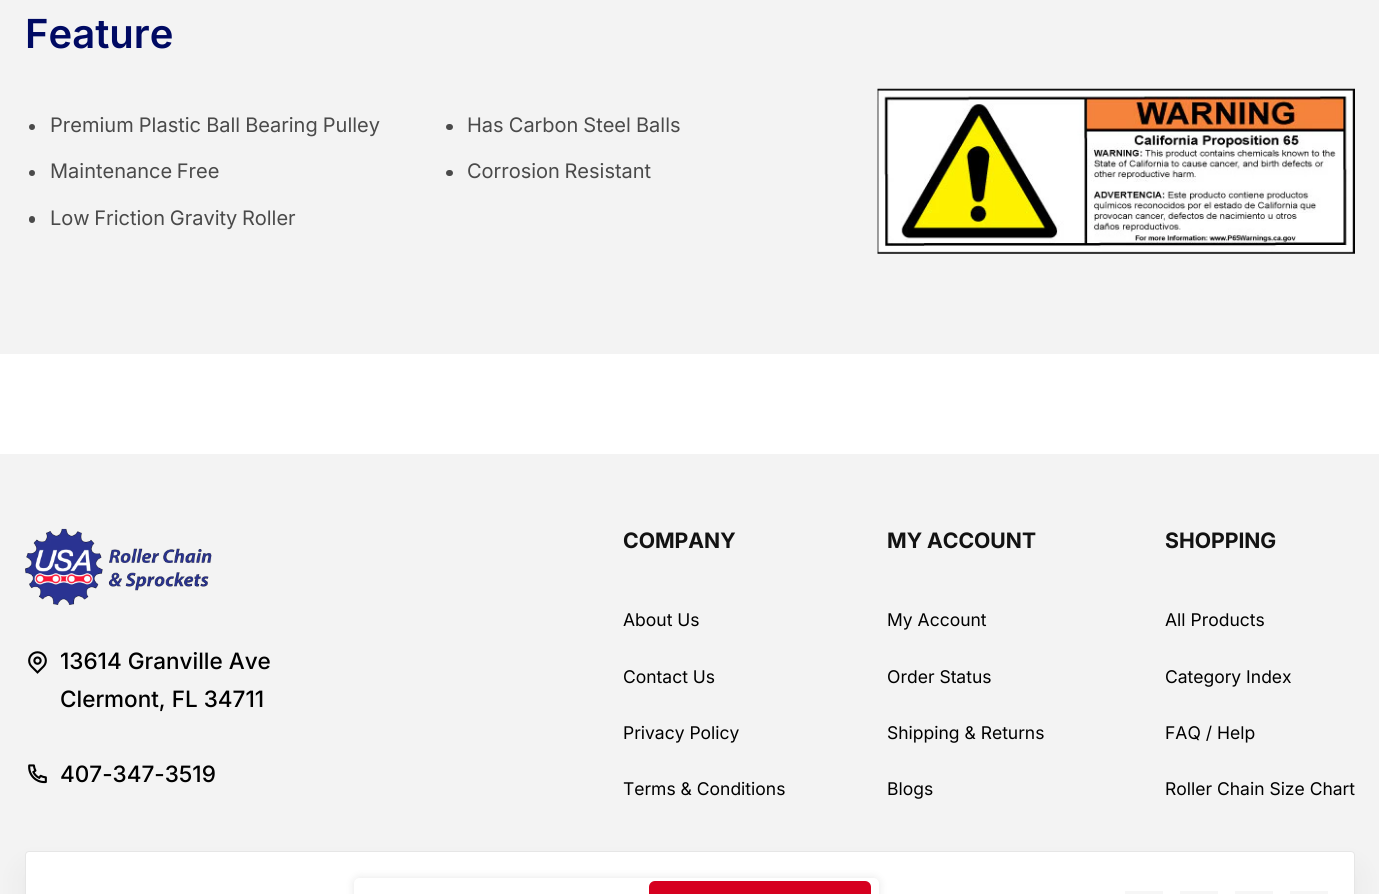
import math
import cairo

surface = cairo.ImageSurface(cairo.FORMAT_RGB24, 1379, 894)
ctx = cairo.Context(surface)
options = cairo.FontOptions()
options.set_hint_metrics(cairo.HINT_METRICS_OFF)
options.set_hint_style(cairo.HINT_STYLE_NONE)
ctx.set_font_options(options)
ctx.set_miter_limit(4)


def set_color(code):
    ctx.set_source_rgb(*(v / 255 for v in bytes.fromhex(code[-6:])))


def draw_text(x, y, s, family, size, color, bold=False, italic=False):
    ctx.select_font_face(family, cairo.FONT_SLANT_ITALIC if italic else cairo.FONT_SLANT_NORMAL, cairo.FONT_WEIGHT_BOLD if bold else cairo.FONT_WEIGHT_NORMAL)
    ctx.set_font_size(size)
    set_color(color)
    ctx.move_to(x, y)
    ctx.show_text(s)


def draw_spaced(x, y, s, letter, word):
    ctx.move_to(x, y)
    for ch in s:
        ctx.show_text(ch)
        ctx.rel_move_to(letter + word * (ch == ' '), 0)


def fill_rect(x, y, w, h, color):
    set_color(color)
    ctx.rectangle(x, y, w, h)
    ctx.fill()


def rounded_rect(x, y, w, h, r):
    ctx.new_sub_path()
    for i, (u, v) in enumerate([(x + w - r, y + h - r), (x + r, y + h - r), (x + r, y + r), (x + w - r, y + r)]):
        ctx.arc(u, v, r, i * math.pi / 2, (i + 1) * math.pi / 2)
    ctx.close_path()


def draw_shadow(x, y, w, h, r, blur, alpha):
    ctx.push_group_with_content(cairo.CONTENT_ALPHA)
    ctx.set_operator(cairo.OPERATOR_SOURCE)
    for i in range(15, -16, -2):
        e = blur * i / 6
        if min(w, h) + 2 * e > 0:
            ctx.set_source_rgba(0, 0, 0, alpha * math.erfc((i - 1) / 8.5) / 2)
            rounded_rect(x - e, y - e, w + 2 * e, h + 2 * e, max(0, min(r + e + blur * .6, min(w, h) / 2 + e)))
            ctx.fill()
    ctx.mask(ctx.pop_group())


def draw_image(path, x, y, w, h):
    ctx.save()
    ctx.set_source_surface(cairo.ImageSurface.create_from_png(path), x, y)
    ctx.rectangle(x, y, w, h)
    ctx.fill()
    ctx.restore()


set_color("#ffffff")
ctx.paint()
fill_rect(0, 0, 1379, 354, "#f3f3f3")
draw_text(25, 48, "Feature", "Inter SemiBold", 40, "#000a63")
set_color("#4a4a4a")
ctx.new_path()
ctx.arc(32, 127, 3, 0, 2 * math.pi)
ctx.fill()
ctx.select_font_face("Inter")
ctx.set_font_size(20)
draw_spaced(50, 132, "Premium Plastic Ball Bearing Pulley", 0, -0.5)
rounded_rect(446, 124, 7, 6, 3)
ctx.fill()
draw_spaced(467, 132, "Has Carbon Steel Balls", 0, -0.5)
ctx.new_path()
ctx.arc(32, 173, 3, 0, 2 * math.pi)
ctx.fill()
draw_spaced(50, 178, "Maintenance Free", 0, -1)
rounded_rect(446, 170, 7, 6, 3)
ctx.fill()
draw_spaced(467, 178, "Corrosion Resistant", 0, -1)
rounded_rect(29, 216, 6, 7, 3)
ctx.fill()
draw_spaced(50, 225, "Low Friction Gravity Roller", 0, -1)
draw_image("assets/img1.png", 877, 88, 478, 166)
fill_rect(0, 454, 1379, 440, "#f3f3f3")
draw_image("assets/img2.png", 25, 528, 187, 77)
draw_image("assets/img3.png", 28, 651, 19, 23)
draw_text(60, 669, "13614 Granville Ave", "Inter Medium", 22.5, "#000000")
draw_text(60, 707, "Clermont, FL 34711", "Inter Medium", 22.5, "#000000")
draw_image("assets/img4.png", 28, 764, 19, 20)
draw_text(60, 782, "407-347-3519", "Inter Medium", 22.5, "#000000")
draw_text(623, 548, "COMPANY", "Inter", 21.25, "#121212", bold=True)
draw_text(623, 626, "About Us", "Inter", 17.5, "#000000")
draw_text(623, 683, "Contact Us", "Inter", 17.5, "#000000")
draw_text(623, 739, "Privacy Policy", "Inter", 17.5, "#000000")
draw_text(623, 795, "Terms & Conditions", "Inter", 17.5, "#000000")
draw_text(887, 548, "MY ACCOUNT", "Inter", 21.25, "#121212", bold=True)
draw_text(887, 626, "My Account", "Inter", 17.5, "#000000")
draw_text(887, 683, "Order Status", "Inter", 17.5, "#000000")
draw_text(887, 739, "Shipping & Returns", "Inter", 17.5, "#000000")
draw_text(887, 795, "Blogs", "Inter", 17.5, "#000000")
draw_text(1165, 548, "SHOPPING", "Inter", 21.25, "#121212", bold=True)
draw_text(1165, 626, "All Products", "Inter", 17.5, "#000000")
draw_text(1165, 683, "Category Index", "Inter", 17.5, "#000000")
draw_text(1165, 739, "FAQ / Help", "Inter", 17.5, "#000000")
draw_text(1165, 795, "Roller Chain Size Chart", "Inter", 17.5, "#000000")
set_color("#000000")
draw_shadow(25, 869, 1330, 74, 4, 15, 0.05)
set_color("#ffffff")
rounded_rect(25, 851, 1330, 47, 4)
ctx.fill()
rounded_rect(25.5, 851.5, 1329, 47, 3.5)
ctx.set_source_rgba(0, 0, 0, 0.1)
ctx.set_line_width(1)
ctx.stroke()
ctx.save()
ctx.set_fill_rule(cairo.FILL_RULE_EVEN_ODD)
ctx.new_path()
ctx.move_to(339, 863)
ctx.line_to(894, 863)
ctx.line_to(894, 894)
ctx.line_to(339, 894)
ctx.close_path()
ctx.move_to(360, 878)
ctx.line_to(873, 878)
ctx.curve_to(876.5, 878, 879, 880.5, 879, 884)
ctx.line_to(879, 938)
ctx.curve_to(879, 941.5, 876.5, 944, 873, 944)
ctx.line_to(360, 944)
ctx.curve_to(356.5, 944, 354, 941.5, 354, 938)
ctx.line_to(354, 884)
ctx.curve_to(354, 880.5, 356.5, 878, 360, 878)
ctx.close_path()
ctx.clip()
set_color("#000000")
draw_shadow(354, 878, 525, 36, 6, 4.5, 0.1)
ctx.restore()
set_color("#d6001f")
rounded_rect(649, 881, 222, 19, 6)
ctx.fill()
fill_rect(1125, 891, 38, 3, "#f6f6f6")
fill_rect(1180, 891, 38, 3, "#f6f6f6")
fill_rect(1235, 891, 38, 3, "#f6f6f6")
fill_rect(1290, 891, 38, 3, "#f6f6f6")
surface.write_to_png("output.png")
